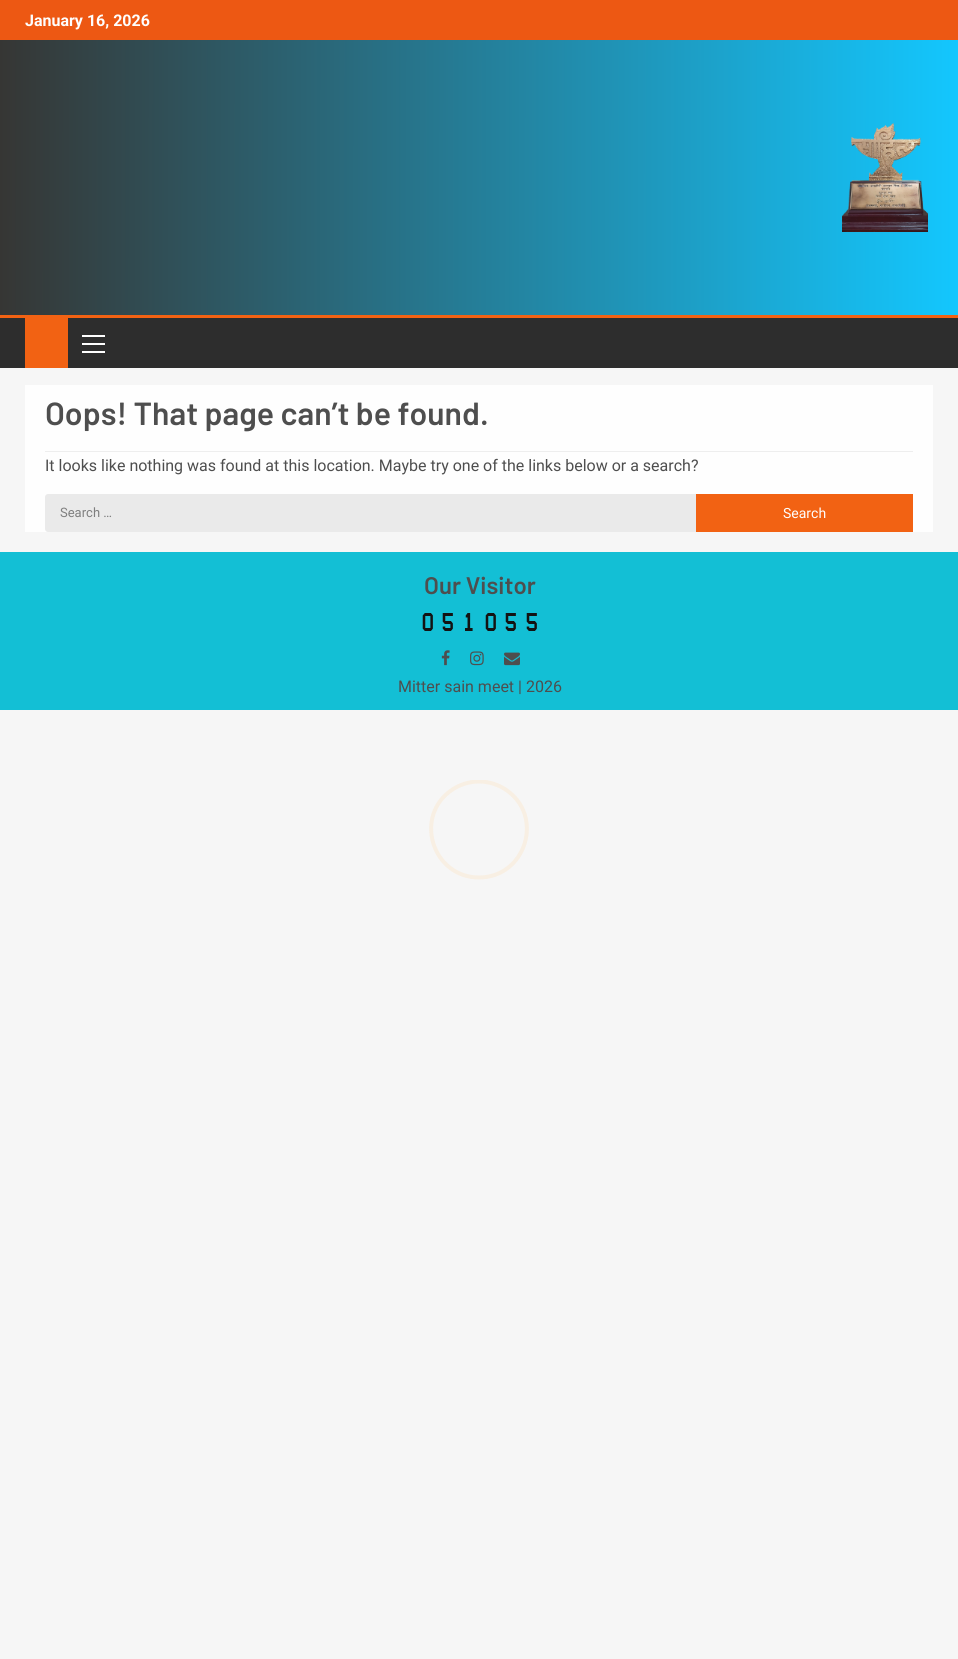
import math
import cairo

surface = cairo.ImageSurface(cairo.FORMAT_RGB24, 958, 1659)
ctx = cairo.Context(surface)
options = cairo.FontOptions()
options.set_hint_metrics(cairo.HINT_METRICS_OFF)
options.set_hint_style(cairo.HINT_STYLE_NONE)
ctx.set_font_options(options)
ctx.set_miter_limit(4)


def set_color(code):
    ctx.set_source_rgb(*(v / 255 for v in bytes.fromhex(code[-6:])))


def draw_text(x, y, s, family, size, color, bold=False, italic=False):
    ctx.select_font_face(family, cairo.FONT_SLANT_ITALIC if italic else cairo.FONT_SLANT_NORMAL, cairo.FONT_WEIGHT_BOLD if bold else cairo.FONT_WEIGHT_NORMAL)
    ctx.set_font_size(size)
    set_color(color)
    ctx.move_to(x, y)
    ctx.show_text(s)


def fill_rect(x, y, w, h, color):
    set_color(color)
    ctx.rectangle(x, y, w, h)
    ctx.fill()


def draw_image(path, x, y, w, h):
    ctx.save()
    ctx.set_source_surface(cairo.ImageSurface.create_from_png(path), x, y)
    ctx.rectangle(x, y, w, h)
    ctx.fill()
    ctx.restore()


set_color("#f6f6f6")
ctx.paint()
fill_rect(0, 0, 958, 40, "#ed5813")
draw_text(25, 26, "January 16, 2026", "Roboto", 16, "#fefefe", bold=True)
gradient = cairo.LinearGradient(958, 178, 0, 177)
gradient.add_color_stop_rgba(0, 0.075, 0.78, 0.996, 1)
gradient.add_color_stop_rgba(1, 0.212, 0.212, 0.204, 1)
ctx.set_source(gradient)
ctx.rectangle(0, 40, 958, 275)
ctx.fill()
draw_image("assets/img1.png", 842, 123, 86, 109)
fill_rect(0, 318, 958, 50, "#2d2d2d")
fill_rect(0, 315, 958, 3, "#f26213")
fill_rect(25, 318, 43, 50, "#f26213")
fill_rect(82, 343, 23, 2, "#fefefe")
fill_rect(82, 335, 23, 2, "#fefefe")
fill_rect(82, 351, 23, 2, "#fefefe")
fill_rect(25, 385, 908, 147, "#fefefe")
fill_rect(45, 451, 868, 1, "#eeeeee")
draw_text(45, 425, "Oops! That page can’t be found.", "Barlow SemiBold", 32, "#4e4e4e")
draw_text(45, 471, "It looks like nothing was found at this location. Maybe try one of the links below or a search?", "Roboto", 16, "#4e4e4e")
set_color("#eaeaea")
ctx.new_path()
ctx.move_to(48, 494)
ctx.line_to(696, 494)
ctx.line_to(696, 532)
ctx.line_to(48, 532)
ctx.curve_to(46.5, 532, 45, 530.5, 45, 529)
ctx.line_to(45, 497)
ctx.curve_to(45, 495.5, 46.5, 494, 48, 494)
ctx.close_path()
ctx.fill()
draw_text(60, 517, "Search …", "Roboto", 13, "#7f7f7f")
fill_rect(696, 494, 217, 38, "#f26213")
draw_text(783, 518, "Search", "Roboto", 14, "#fefefe")
fill_rect(0, 552, 958, 158, "#13bfd5")
draw_text(424, 594, "Our Visitor", "Barlow SemiBold", 24, "#4e4e4e")
draw_image("assets/img2.png", 422, 613, 11, 18)
draw_image("assets/img3.png", 442, 613, 11, 18)
draw_image("assets/img4.png", 465, 613, 8, 18)
draw_image("assets/img2.png", 485, 613, 11, 18)
draw_image("assets/img3.png", 505, 613, 11, 18)
draw_image("assets/img3.png", 526, 613, 11, 18)
draw_image("assets/img5.png", 441, 650, 9, 16)
draw_image("assets/img6.png", 470, 651, 14, 15)
draw_image("assets/img7.png", 504, 652, 16, 14)
draw_text(398, 692, "Mitter sain meet | 2026", "Roboto", 16, "#4e4e4e")
ctx.save()
ctx.rectangle(429, 780, 50, 100)
ctx.clip()
ctx.new_path()
ctx.move_to(479, 877.5)
ctx.curve_to(432, 877.5, 413, 815.5, 452.5, 789.5)
ctx.curve_to(460, 784.5, 469.5, 781.5, 479, 781.5)
set_color("#f8efe3")
ctx.set_line_width(4)
ctx.stroke()
ctx.restore()
ctx.save()
ctx.rectangle(479, 780, 50, 100)
ctx.clip()
ctx.new_path()
ctx.move_to(479, 781.5)
ctx.curve_to(488.5, 781.5, 498, 784.5, 505.5, 789.5)
ctx.curve_to(545, 815.5, 526, 877.5, 479, 877.5)
set_color("#f8efe3")
ctx.set_line_width(4)
ctx.stroke()
ctx.restore()
surface.write_to_png("output.png")
